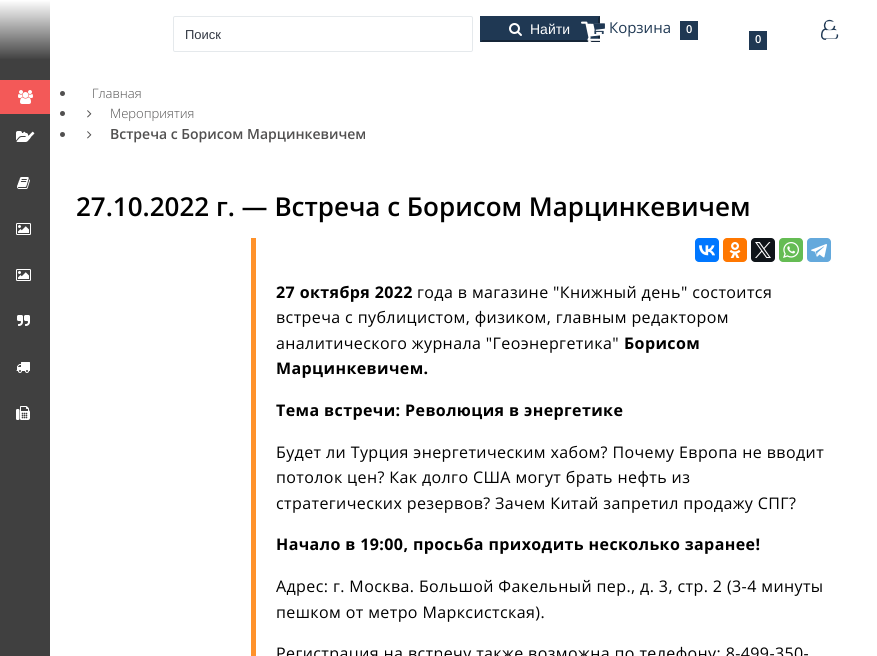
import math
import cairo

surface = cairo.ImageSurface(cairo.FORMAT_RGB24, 877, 656)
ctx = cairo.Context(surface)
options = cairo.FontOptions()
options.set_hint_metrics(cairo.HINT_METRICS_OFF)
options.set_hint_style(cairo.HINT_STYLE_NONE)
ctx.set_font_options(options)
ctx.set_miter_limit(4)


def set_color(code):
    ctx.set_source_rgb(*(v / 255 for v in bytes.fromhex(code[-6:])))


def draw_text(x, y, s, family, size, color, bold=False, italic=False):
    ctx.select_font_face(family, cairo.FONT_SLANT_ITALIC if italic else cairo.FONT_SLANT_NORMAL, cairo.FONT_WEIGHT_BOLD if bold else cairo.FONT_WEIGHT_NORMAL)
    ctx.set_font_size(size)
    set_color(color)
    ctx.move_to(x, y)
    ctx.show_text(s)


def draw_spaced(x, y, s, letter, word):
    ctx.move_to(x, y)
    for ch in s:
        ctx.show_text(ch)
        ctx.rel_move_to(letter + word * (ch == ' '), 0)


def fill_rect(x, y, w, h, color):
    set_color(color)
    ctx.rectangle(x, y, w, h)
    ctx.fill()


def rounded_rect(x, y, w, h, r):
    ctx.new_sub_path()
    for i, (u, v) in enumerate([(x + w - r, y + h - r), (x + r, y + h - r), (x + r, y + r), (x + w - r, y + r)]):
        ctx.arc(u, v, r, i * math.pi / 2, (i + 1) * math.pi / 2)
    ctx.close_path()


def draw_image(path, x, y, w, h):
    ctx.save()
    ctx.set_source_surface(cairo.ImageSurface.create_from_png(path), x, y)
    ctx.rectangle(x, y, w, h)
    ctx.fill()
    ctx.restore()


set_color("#ffffff")
ctx.paint()
fill_rect(0, 0, 50, 656, "#404040")
gradient = cairo.LinearGradient(439, 0, 439, 60)
gradient.add_color_stop_rgba(0, 1, 1, 1, 1)
gradient.add_color_stop_rgba(1, 1, 1, 1, 0)
ctx.set_source(gradient)
ctx.rectangle(0, 0, 50, 59)
ctx.fill()
rounded_rect(173.5, 16.5, 299, 35, 1.5)
set_color("#e5e9ec")
ctx.set_line_width(1)
ctx.stroke()
draw_text(185, 39, "Поиск", "Liberation Sans", 13, "#333843")
fill_rect(480, 16, 120, 26, "#1f3853")
set_color("#152537")
ctx.new_path()
ctx.move_to(600, 16)
ctx.line_to(600, 42)
ctx.line_to(598, 40)
ctx.line_to(598, 18)
ctx.close_path()
ctx.fill()
ctx.new_path()
ctx.move_to(600, 42)
ctx.line_to(480, 42)
ctx.line_to(482, 40)
ctx.line_to(598, 40)
ctx.close_path()
ctx.fill()
set_color("#1f3853")
ctx.new_path()
ctx.move_to(480, 42)
ctx.line_to(480, 16)
ctx.line_to(482, 18)
ctx.line_to(482, 40)
ctx.close_path()
ctx.fill()
draw_image("assets/img1.png", 509, 23, 13, 13)
draw_text(530, 34, "Найти", "Liberation Sans", 14, "#ffffff")
draw_image("assets/img4.png", 581, 21, 19, 21)
draw_image("assets/img2.png", 591, 23, 14, 12)
draw_text(609, 33, "Корзина", "Open Sans", 15, "#1f3853")
fill_rect(680, 21, 18, 19, "#1f3853")
draw_text(686, 33, "0", "Open Sans SemiBold", 11, "#ffffff")
draw_image("assets/img3.png", 821, 19, 18, 21)
fill_rect(749, 31, 18, 19, "#1f3853")
draw_text(755, 43, "0", "Open Sans SemiBold", 11, "#ffffff")
draw_image("assets/img5.png", 826, 21, 13, 19)
fill_rect(0, 80, 50, 34, "#f35958")
draw_image("assets/img6.png", 18, 90, 15, 14)
draw_image("assets/img7.png", 16, 131, 15, 11)
draw_image("assets/img8.png", 23, 131, 12, 8)
draw_image("assets/img9.png", 17, 177, 13, 12)
draw_image("assets/img10.png", 16, 223, 15, 12)
draw_image("assets/img10.png", 16, 269, 15, 12)
draw_image("assets/img11.png", 17, 315, 13, 11)
draw_image("assets/img12.png", 16, 362, 14, 11)
draw_image("assets/img13.png", 16, 406, 14, 14)
set_color("#515050")
ctx.arc(62.5, 93.5, 2.5, 0, 2 * math.pi)
ctx.fill()
draw_text(92, 98, "Главная", "Open Sans Light", 13, "#515050")
ctx.new_path()
ctx.arc(62.5, 113.5, 2.5, 0, 2 * math.pi)
ctx.fill()
draw_image("assets/img14.png", 87, 110, 5, 8)
draw_text(110, 118, "Мероприятия", "Open Sans Light", 13, "#515050")
ctx.new_path()
ctx.arc(62.5, 134.5, 2.5, 0, 2 * math.pi)
ctx.fill()
draw_image("assets/img14.png", 87, 131, 5, 8)
draw_text(110, 139, "Встреча с Борисом Марцинкевичем", "Open Sans SemiBold", 14, "#515050")
draw_text(76, 216, "27.10.2022 г. — Встреча с Борисом Марцинкевичем", "Open Sans SemiBold", 26, "#000000")
fill_rect(251, 238, 5, 418, "#ff922b")
set_color("#0077ff")
rounded_rect(695, 238, 24, 24, 4)
ctx.fill()
draw_image("assets/img15.png", 699, 245, 16, 11)
set_color("#ff7700")
rounded_rect(723, 238, 24, 24, 4)
ctx.fill()
draw_image("assets/img16.png", 729, 242, 12, 16)
set_color("#0f1419")
rounded_rect(751, 238, 24, 24, 4)
ctx.fill()
draw_image("assets/img17.png", 755, 242, 16, 16)
set_color("#65bc54")
rounded_rect(779, 238, 24, 24, 4)
ctx.fill()
draw_image("assets/img18.png", 783, 242, 16, 16)
set_color("#64a9dc")
rounded_rect(807, 238, 24, 24, 4)
ctx.fill()
draw_image("assets/img19.png", 811, 244, 16, 14)
ctx.select_font_face("Open Sans", cairo.FONT_SLANT_NORMAL, cairo.FONT_WEIGHT_BOLD)
ctx.set_font_size(16)
set_color("#000000")
draw_spaced(276, 298, "27 октября 2022", 0.4, 0)
ctx.select_font_face("Open Sans")
draw_spaced(417, 298, "года в магазине \"Книжный день\" состоится", 0.4, 0)
draw_spaced(276, 323, "встреча с публицистом, физиком, главным редактором", 0.4, 0)
draw_spaced(276, 349, "аналитического журнала \"Геоэнергетика\"", 0.4, 0)
ctx.select_font_face("Open Sans", cairo.FONT_SLANT_NORMAL, cairo.FONT_WEIGHT_BOLD)
draw_spaced(624, 349, "Борисом", 0.4, 0)
draw_spaced(276, 374, "Марцинкевичем.", 0.4, 0)
draw_spaced(276, 416, "Тема встречи: Революция в энергетике", 0.4, 0)
ctx.select_font_face("Open Sans")
draw_spaced(276, 458, "Будет ли Турция энергетическим хабом? Почему Европа не вводит", 0.4, 0)
draw_spaced(276, 483, "потолок цен? Как долго США могут брать нефть из", 0.4, 0)
draw_spaced(276, 509, "стратегических резервов? Зачем Китай запретил продажу СПГ?", 0.4, 0)
ctx.select_font_face("Open Sans", cairo.FONT_SLANT_NORMAL, cairo.FONT_WEIGHT_BOLD)
draw_spaced(276, 550, "Начало в 19:00, просьба приходить несколько заранее!", 0.4, 0)
ctx.select_font_face("Open Sans")
draw_spaced(276, 592, "Адрес: г. Москва. Большой Факельный пер., д. 3, стр. 2 (3-4 минуты", 0.4, 0)
draw_spaced(276, 618, "пешком от метро Марксистская).", 0.4, 0)
draw_spaced(276, 659, "Регистрация на встречу также возможна по телефону: 8-499-350-", 0.4, 0)
surface.write_to_png("output.png")
